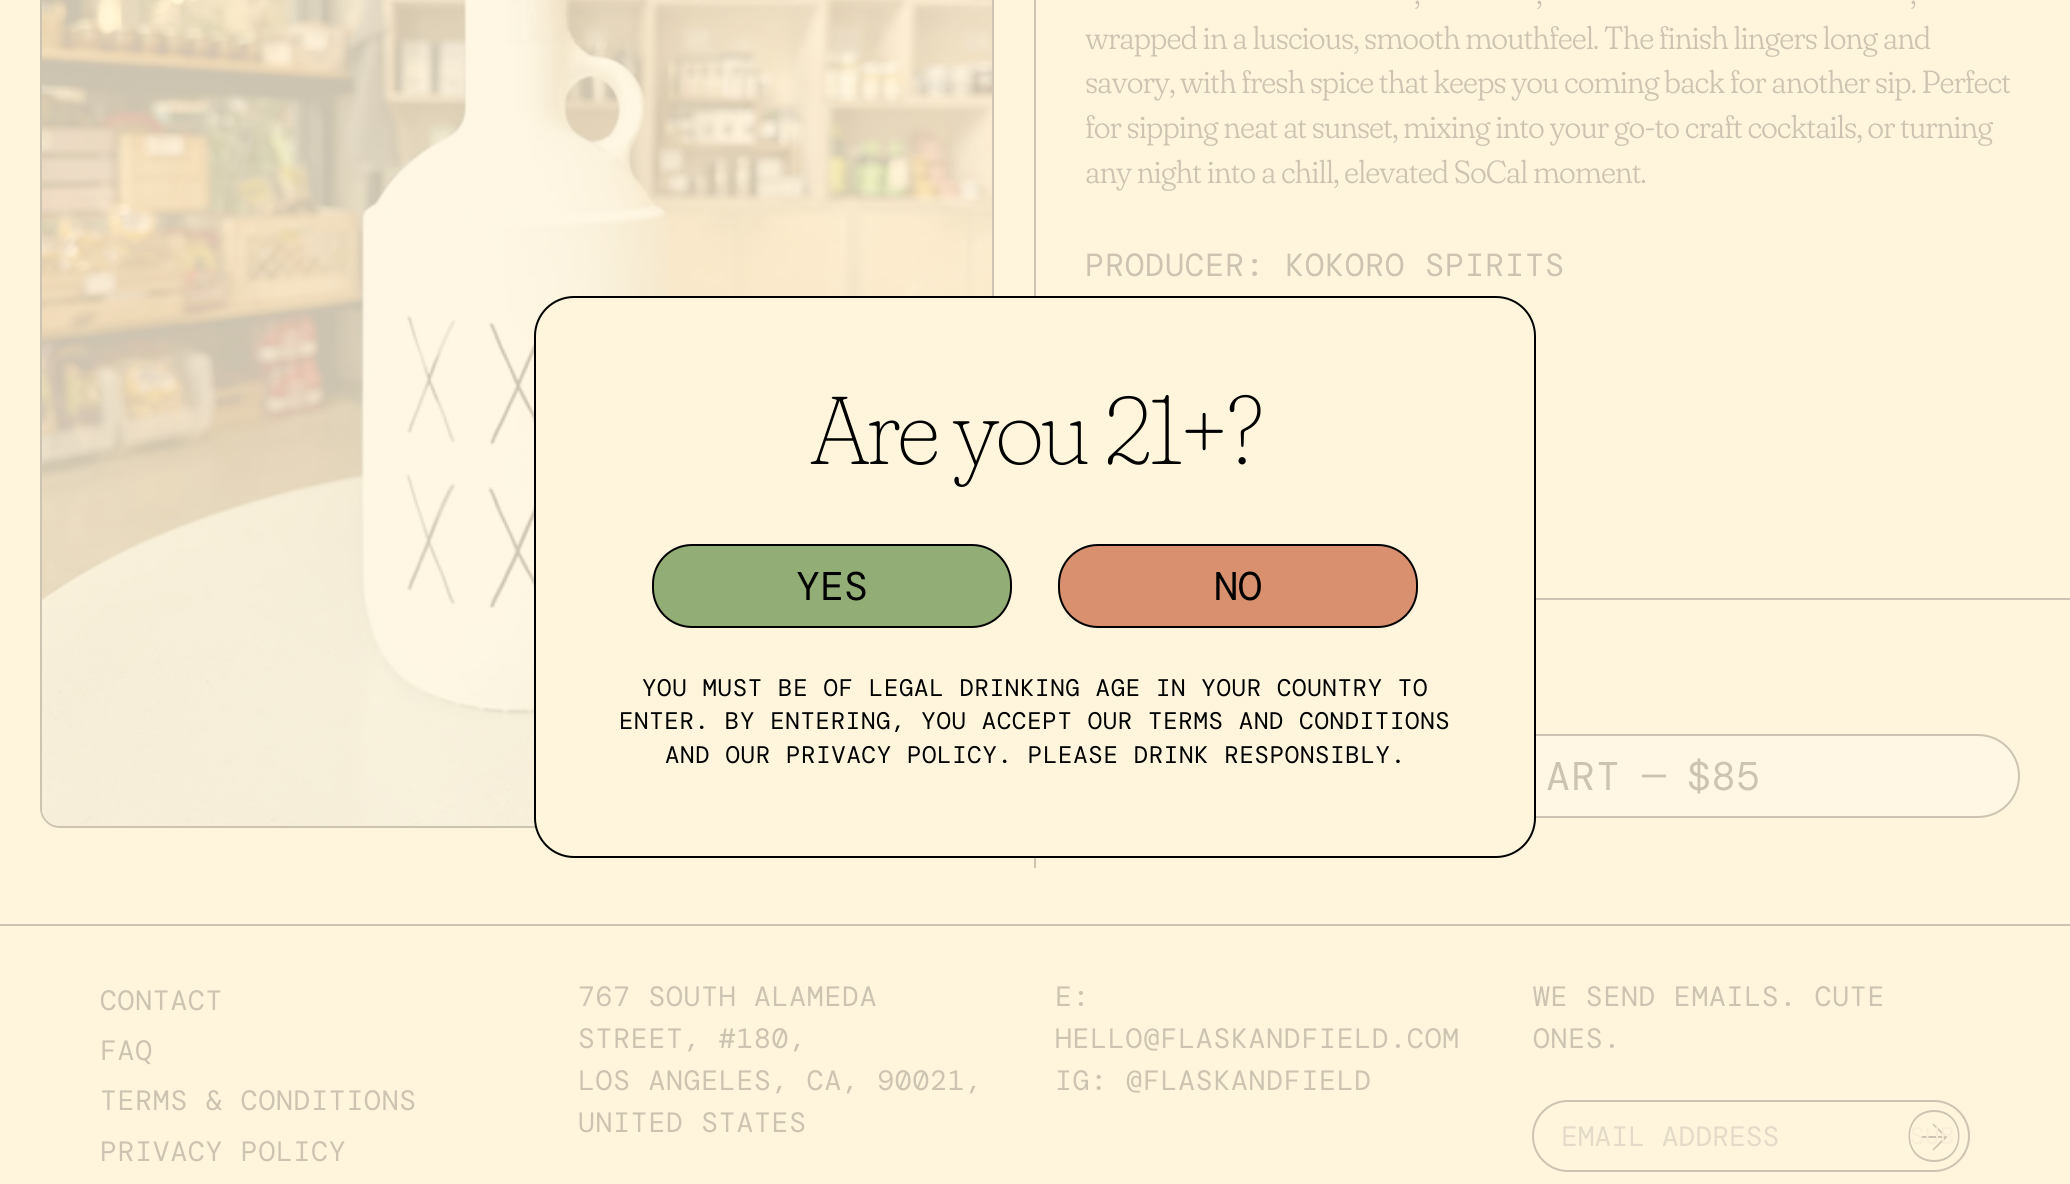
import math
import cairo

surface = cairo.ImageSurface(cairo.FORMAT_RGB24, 2070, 1184)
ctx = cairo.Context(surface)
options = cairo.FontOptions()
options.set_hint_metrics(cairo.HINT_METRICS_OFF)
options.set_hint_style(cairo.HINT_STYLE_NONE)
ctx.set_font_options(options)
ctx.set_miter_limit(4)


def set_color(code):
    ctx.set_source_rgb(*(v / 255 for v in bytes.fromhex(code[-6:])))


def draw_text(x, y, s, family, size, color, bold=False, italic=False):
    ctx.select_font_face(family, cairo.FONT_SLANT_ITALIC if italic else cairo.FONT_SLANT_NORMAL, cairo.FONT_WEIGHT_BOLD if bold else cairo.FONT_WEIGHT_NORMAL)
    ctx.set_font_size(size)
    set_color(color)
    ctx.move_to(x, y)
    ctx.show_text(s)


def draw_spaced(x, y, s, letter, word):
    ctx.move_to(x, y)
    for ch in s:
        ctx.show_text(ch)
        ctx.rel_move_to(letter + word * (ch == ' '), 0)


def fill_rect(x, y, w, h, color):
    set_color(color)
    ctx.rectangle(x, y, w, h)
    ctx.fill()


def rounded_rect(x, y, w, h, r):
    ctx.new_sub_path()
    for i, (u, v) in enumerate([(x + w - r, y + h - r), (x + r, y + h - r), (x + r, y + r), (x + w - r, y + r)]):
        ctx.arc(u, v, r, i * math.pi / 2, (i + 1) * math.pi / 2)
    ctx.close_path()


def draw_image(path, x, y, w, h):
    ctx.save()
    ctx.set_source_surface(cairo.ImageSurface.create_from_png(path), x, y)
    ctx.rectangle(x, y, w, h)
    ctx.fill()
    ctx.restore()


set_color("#fff5dd")
ctx.paint()
fill_rect(1034, 0, 2, 868, "#ccc4b1")
rounded_rect(41, -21, 952, 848, 19)
ctx.stroke()
draw_image("assets/img1.png", 42, 0, 950, 826)
set_color("#fff7e4")
rounded_rect(1087, 735, 932, 82, 41)
ctx.fill_preserve()
set_color("#ccc4b1")
ctx.stroke()
set_color("#fff5dd")
rounded_rect(535, 297, 1000, 560, 39)
ctx.fill_preserve()
set_color("#000000")
ctx.stroke()
ctx.select_font_face("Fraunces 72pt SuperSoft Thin")
ctx.set_font_size(96)
draw_spaced(810, 464, "Are you 21+?", -3.8, 0)
set_color("#93ad76")
rounded_rect(653, 545, 358, 82, 39)
ctx.fill_preserve()
set_color("#000000")
ctx.stroke()
draw_text(796, 600, "YES", "DM Mono", 40, "#000000")
set_color("#d8906f")
rounded_rect(1059, 545, 358, 82, 39)
ctx.fill_preserve()
set_color("#000000")
ctx.stroke()
draw_text(1214, 600, "NO", "DM Mono", 40, "#000000")
ctx.set_font_size(24)
draw_spaced(642, 696, "YOU MUST BE OF LEGAL DRINKING AGE IN YOUR COUNTRY TO", 0.72, 0)
draw_spaced(619, 729, "ENTER. BY ENTERING, YOU ACCEPT OUR TERMS AND CONDITIONS", 0.72, 0)
draw_spaced(665, 763, "AND OUR PRIVACY POLICY. PLEASE DRINK RESPONSIBLY.", 0.72, 0)
ctx.select_font_face("Fraunces 72pt SuperSoft Light")
ctx.set_font_size(32)
set_color("#ccc4b1")
draw_spaced(1414, 4, ",", -0.95, 0)
draw_spaced(1536, 4, ",", -0.95, 0)
draw_spaced(1910, 4, ",", -0.95, 0)
draw_spaced(1085, 49, "wrapped in a luscious, smooth mouthfeel. The finish lingers long and", -0.95, 0)
draw_spaced(1085, 93, "savory, with fresh spice that keeps you coming back for another sip. Perfect", -0.95, 0)
draw_spaced(1085, 138, "for sipping neat at sunset, mixing into your go-to craft cocktails, or turning", -0.95, 0)
draw_spaced(1085, 183, "any night into a chill, elevated SoCal moment.", -0.95, 0)
ctx.select_font_face("DM Mono")
draw_spaced(1085, 276, "PRODUCER: KOKORO SPIRITS", 0.8, 0)
fill_rect(1536, 598, 534, 2, "#ccc4b1")
ctx.set_font_size(40)
draw_spaced(1546, 790, "ART", 1, 0)
draw_spaced(1642, 790, "—", 1, 0)
draw_spaced(1687, 790, "$85", 0.5, 0)
fill_rect(0, 924, 2070, 2, "#ccc4b1")
ctx.set_font_size(28)
draw_spaced(100, 1010, "CONTACT", 0.8, 0)
draw_spaced(100, 1060, "FAQ", 0.8, 0)
draw_spaced(100, 1110, "TERMS & CONDITIONS", 0.8, 0)
draw_spaced(100, 1161, "PRIVACY POLICY", 0.8, 0)
draw_spaced(578, 1006, "767 SOUTH ALAMEDA", 0.8, 0)
draw_spaced(578, 1048, "STREET, #180,", 0.8, 0)
draw_spaced(578, 1090, "LOS ANGELES, CA, 90021,", 0.8, 0)
draw_spaced(578, 1132, "UNITED STATES", 0.8, 0)
draw_spaced(1055, 1006, "E:", 0.8, 0)
draw_spaced(1055, 1048, "HELLO@FLASKANDFIELD.COM", 0.8, 0)
draw_spaced(1055, 1090, "IG: @FLASKANDFIELD", 0.8, 0)
draw_spaced(1533, 1006, "WE SEND EMAILS. CUTE", 0.8, 0)
draw_spaced(1533, 1048, "ONES.", 0.8, 0)
rounded_rect(1533, 1101, 436, 70, 35)
ctx.stroke()
draw_text(1561, 1146, "EMAIL ADDRESS", "DM Mono", 28, "#e3dbc8")
set_color("#ccc4b1")
ctx.set_fill_rule(cairo.FILL_RULE_EVEN_ODD)
ctx.new_path()
ctx.move_to(1943.5, 1136)
ctx.line_to(1932.5, 1124.5)
ctx.line_to(1933.5, 1123.5)
ctx.line_to(1947.5, 1137)
ctx.line_to(1933.5, 1150.5)
ctx.line_to(1932.5, 1149.5)
ctx.line_to(1943.5, 1138)
ctx.line_to(1920, 1138)
ctx.line_to(1920, 1136)
ctx.close_path()
ctx.fill()
ctx.new_path()
ctx.move_to(1934, 1160)
ctx.curve_to(1966, 1160, 1966, 1112, 1934, 1112)
ctx.curve_to(1902, 1112, 1902, 1160, 1934, 1160)
ctx.close_path()
ctx.move_to(1934, 1162)
ctx.curve_to(1968, 1162, 1968, 1110, 1934, 1110)
ctx.curve_to(1900, 1110, 1900, 1162, 1934, 1162)
ctx.close_path()
ctx.fill()
ctx.set_font_size(24)
set_color("#f8eed7")
draw_spaced(1910, 1144, "SUB", 0.72, 0)
surface.write_to_png("output.png")
